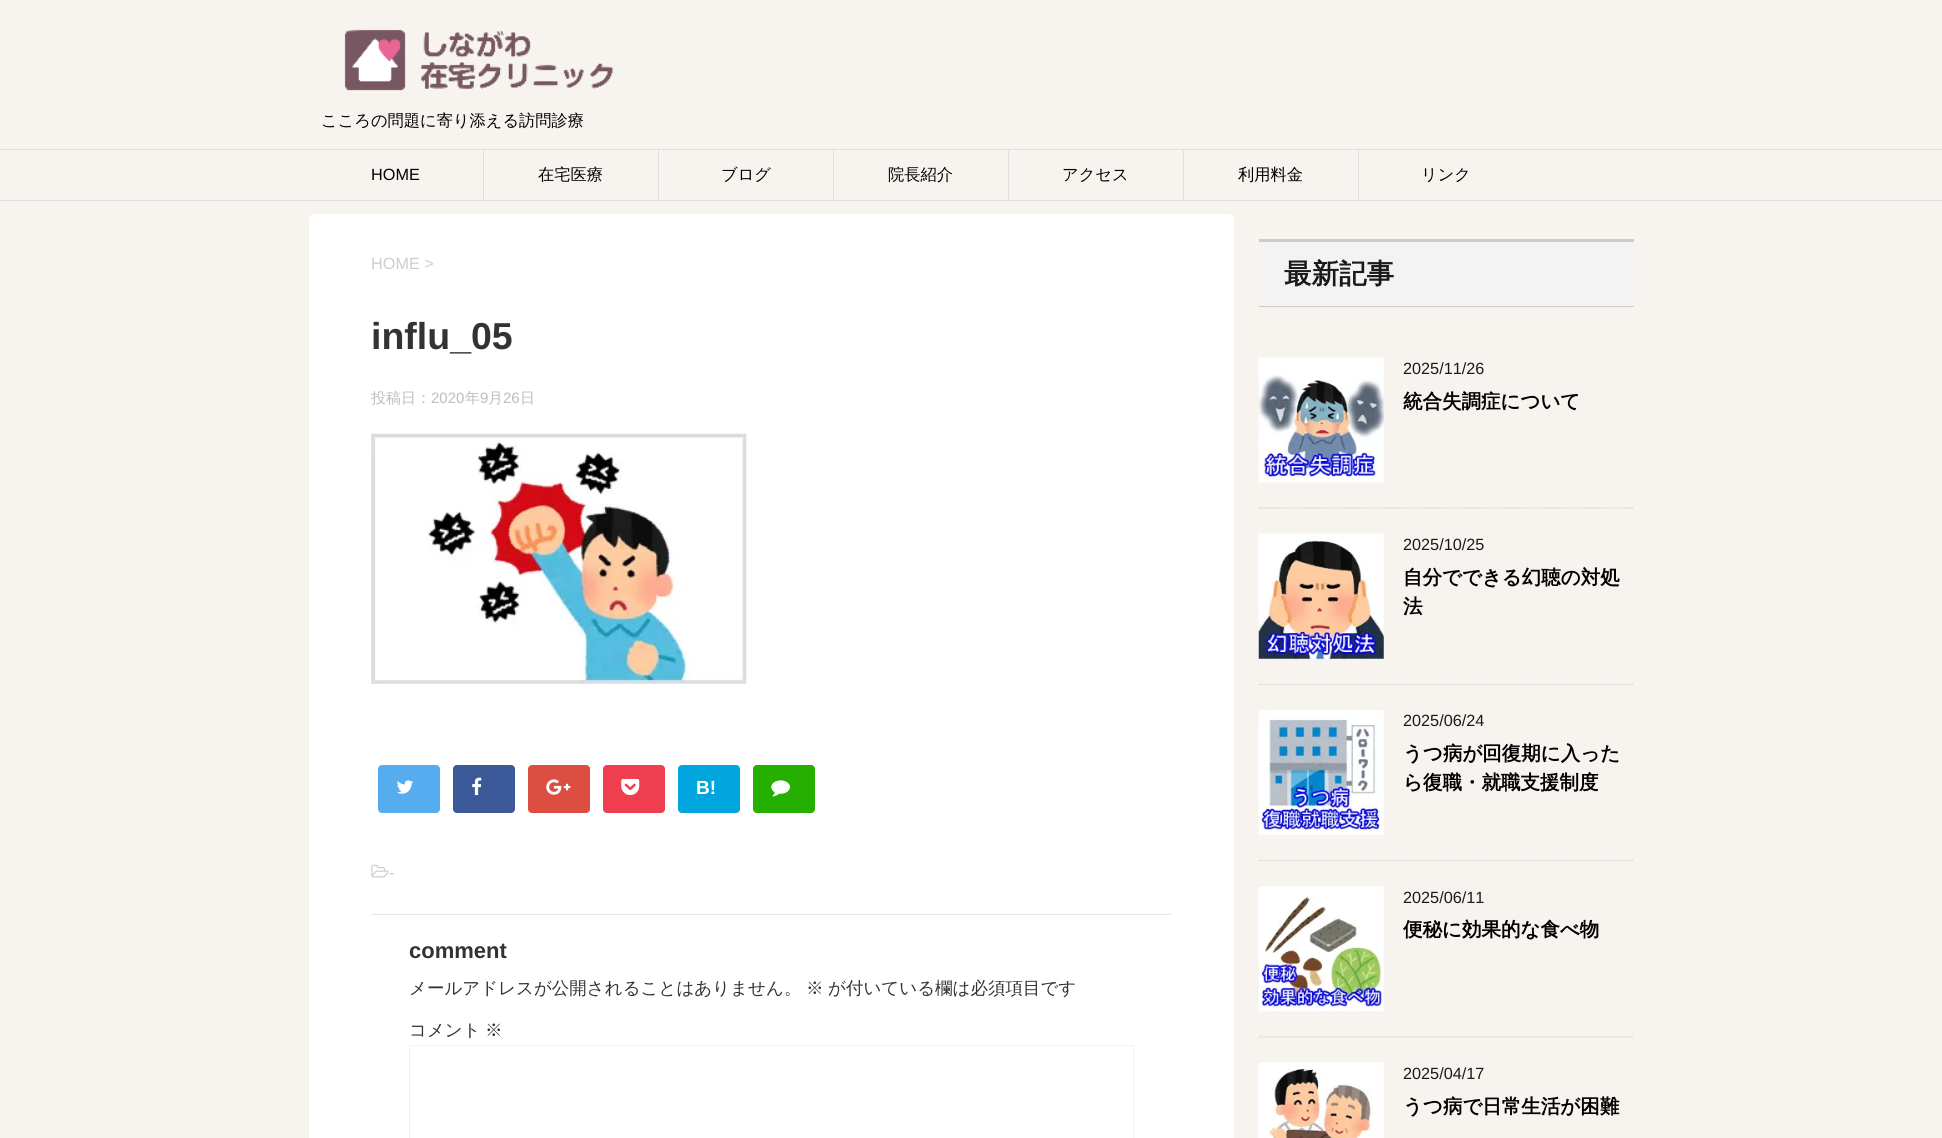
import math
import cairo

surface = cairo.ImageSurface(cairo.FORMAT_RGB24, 1942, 1138)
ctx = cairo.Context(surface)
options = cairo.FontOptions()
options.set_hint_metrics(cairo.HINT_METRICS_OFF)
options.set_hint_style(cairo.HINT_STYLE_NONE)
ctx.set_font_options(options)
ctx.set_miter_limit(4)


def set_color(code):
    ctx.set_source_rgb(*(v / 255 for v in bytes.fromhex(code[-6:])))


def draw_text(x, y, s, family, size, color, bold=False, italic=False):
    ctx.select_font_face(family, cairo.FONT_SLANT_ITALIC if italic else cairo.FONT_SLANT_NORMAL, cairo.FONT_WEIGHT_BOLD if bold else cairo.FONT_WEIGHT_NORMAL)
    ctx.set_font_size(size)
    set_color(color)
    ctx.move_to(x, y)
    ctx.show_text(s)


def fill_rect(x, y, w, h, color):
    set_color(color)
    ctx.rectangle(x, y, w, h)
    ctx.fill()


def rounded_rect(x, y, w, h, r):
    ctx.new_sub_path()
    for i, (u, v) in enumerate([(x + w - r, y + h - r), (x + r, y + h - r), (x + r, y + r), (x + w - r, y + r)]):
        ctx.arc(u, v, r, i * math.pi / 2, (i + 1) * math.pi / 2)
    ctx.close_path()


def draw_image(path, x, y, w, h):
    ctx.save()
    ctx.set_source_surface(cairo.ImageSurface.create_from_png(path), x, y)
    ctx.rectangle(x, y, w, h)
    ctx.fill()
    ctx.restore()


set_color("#f7f4ef")
ctx.paint()
draw_image("assets/img1.png", 344, 29, 269, 62)
draw_text(321, 126, "こころの問題に寄り添える訪問診療", "WenQuanYi Zen Hei Medium", 16.25, "#000000")
fill_rect(0, 149, 1942, 1, "#e0dede")
fill_rect(0, 200, 1942, 1, "#e0dede")
fill_rect(483, 150, 1, 50, "#e0dede")
draw_text(371, 180, "HOME", "Liberation Sans", 16.25, "#000000")
fill_rect(658, 150, 1, 50, "#e0dede")
draw_text(538, 180, "在宅医療", "WenQuanYi Zen Hei Medium", 16.25, "#000000")
fill_rect(833, 150, 1, 50, "#e0dede")
draw_text(721, 180, "ブログ", "WenQuanYi Zen Hei Medium", 16.25, "#000000")
fill_rect(1008, 150, 1, 50, "#e0dede")
draw_text(888, 180, "院長紹介", "WenQuanYi Zen Hei Medium", 16.25, "#000000")
fill_rect(1183, 150, 1, 50, "#e0dede")
draw_text(1062, 180, "アクセス", "WenQuanYi Zen Hei Medium", 16.25, "#000000")
fill_rect(1358, 150, 1, 50, "#e0dede")
draw_text(1238, 180, "利用料金", "WenQuanYi Zen Hei Medium", 16.25, "#000000")
draw_text(1421, 180, "リンク", "WenQuanYi Zen Hei Medium", 16.25, "#000000")
set_color("#ffffff")
rounded_rect(309, 214, 925, 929, 5)
ctx.fill()
draw_text(371, 269, "HOME >", "Liberation Sans", 16.25, "#cccccc")
draw_text(371, 349, "influ_05", "Liberation Sans", 37.5, "#333333", bold=True)
draw_text(371, 403, "投稿日：", "WenQuanYi Zen Hei Medium", 15, "#bdbdbd")
draw_text(431, 403, "2020", "Liberation Sans", 15, "#bdbdbd")
draw_text(465, 403, "年", "WenQuanYi Zen Hei Medium", 15, "#bdbdbd")
draw_text(480, 403, "9", "Liberation Sans", 15, "#bdbdbd")
draw_text(488, 403, "月", "WenQuanYi Zen Hei Medium", 15, "#bdbdbd")
draw_text(503, 403, "26", "Liberation Sans", 15, "#bdbdbd")
draw_text(520, 403, "日", "WenQuanYi Zen Hei Medium", 15, "#bdbdbd")
draw_image("assets/img2.png", 371, 433, 376, 251)
set_color("#55acee")
rounded_rect(378, 765, 62, 48, 4)
ctx.fill()
draw_image("assets/img3.png", 397, 780, 16, 14)
set_color("#3b5998")
rounded_rect(453, 765, 62, 48, 4)
ctx.fill()
draw_image("assets/img4.png", 472, 777, 10, 19)
set_color("#dc4e41")
rounded_rect(528, 765, 62, 48, 4)
ctx.fill()
draw_image("assets/img5.png", 546, 779, 25, 16)
set_color("#f03e51")
rounded_rect(603, 765, 62, 48, 4)
ctx.fill()
draw_image("assets/img6.png", 621, 779, 19, 17)
set_color("#00a5de")
rounded_rect(678, 765, 62, 48, 4)
ctx.fill()
draw_text(696, 794, "B!", "Liberation Sans", 19, "#ffffff", bold=True)
set_color("#25af00")
rounded_rect(753, 765, 62, 48, 4)
ctx.fill()
draw_image("assets/img7.png", 771, 780, 19, 17)
draw_image("assets/img8.png", 371, 864, 18, 14)
draw_text(389, 878, "-", "Liberation Sans", 16.25, "#cccccc")
fill_rect(371, 914, 800, 1, "#e6e6e6")
draw_text(409, 958, "comment", "Liberation Sans", 22, "#333333", bold=True)
draw_text(409, 994, "メールアドレスが公開されることはありません。", "WenQuanYi Zen Hei Medium", 17.5, "#333333")
draw_text(806, 994, "※", "WenQuanYi Zen Hei Medium", 17.5, "#333333")
draw_text(828, 994, "が付いている欄は必須項目です", "WenQuanYi Zen Hei Medium", 17.5, "#333333")
draw_text(409, 1036, "コメント", "WenQuanYi Zen Hei Medium", 17.5, "#333333")
draw_text(485, 1036, "※", "WenQuanYi Zen Hei Medium", 17.5, "#333333")
ctx.rectangle(409.5, 1045.5, 724, 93)
set_color("#f2f2f2")
ctx.set_line_width(1)
ctx.stroke()
fill_rect(1259, 242, 375, 66, "#f3f3f3")
fill_rect(1259, 239, 375, 3, "#cccccc")
fill_rect(1259, 306, 375, 1, "#cccccc")
draw_text(1284, 283, "最新記事", "WenQuanYi Zen Hei", 27.5, "#1a1a1a", bold=True)
ctx.new_path()
ctx.move_to(1259, 508)
ctx.line_to(1634, 508)
set_color("#cccccc")
ctx.set_line_width(1.2)
ctx.set_dash([1.25, 1.25])
ctx.stroke()
draw_image("assets/img9.png", 1258, 357, 126, 126)
draw_text(1403, 374, "2025/11/26", "Liberation Sans", 16.25, "#1a1a1a")
draw_text(1403, 408, "統合失調症について", "WenQuanYi Zen Hei", 19.5, "#000000", bold=True)
ctx.new_path()
ctx.move_to(1259, 684.5)
ctx.line_to(1634, 684.5)
set_color("#cccccc")
ctx.stroke()
draw_image("assets/img10.png", 1258, 533, 126, 126)
draw_text(1403, 550, "2025/10/25", "Liberation Sans", 16.25, "#1a1a1a")
draw_text(1403, 584, "自分でできる幻聴の対処", "WenQuanYi Zen Hei", 19.5, "#000000", bold=True)
draw_text(1403, 613, "法", "WenQuanYi Zen Hei", 19.5, "#000000", bold=True)
ctx.new_path()
ctx.move_to(1259, 860.5)
ctx.line_to(1634, 860.5)
set_color("#cccccc")
ctx.stroke()
draw_image("assets/img11.png", 1258, 710, 126, 125)
draw_text(1403, 726, "2025/06/24", "Liberation Sans", 16.25, "#1a1a1a")
draw_text(1403, 760, "うつ病が回復期に入った", "WenQuanYi Zen Hei", 19.5, "#000000", bold=True)
draw_text(1403, 789, "ら復職・就職支援制度", "WenQuanYi Zen Hei", 19.5, "#000000", bold=True)
ctx.new_path()
ctx.move_to(1259, 1037)
ctx.line_to(1634, 1037)
set_color("#cccccc")
ctx.stroke()
draw_image("assets/img12.png", 1258, 886, 126, 126)
draw_text(1403, 903, "2025/06/11", "Liberation Sans", 16.25, "#1a1a1a")
draw_text(1403, 936, "便秘に効果的な食べ物", "WenQuanYi Zen Hei", 19.5, "#000000", bold=True)
draw_image("assets/img13.png", 1258, 1062, 126, 76)
draw_text(1403, 1079, "2025/04/17", "Liberation Sans", 16.25, "#1a1a1a")
draw_text(1403, 1113, "うつ病で日常生活が困難", "WenQuanYi Zen Hei", 19.5, "#000000", bold=True)
surface.write_to_png("output.png")
